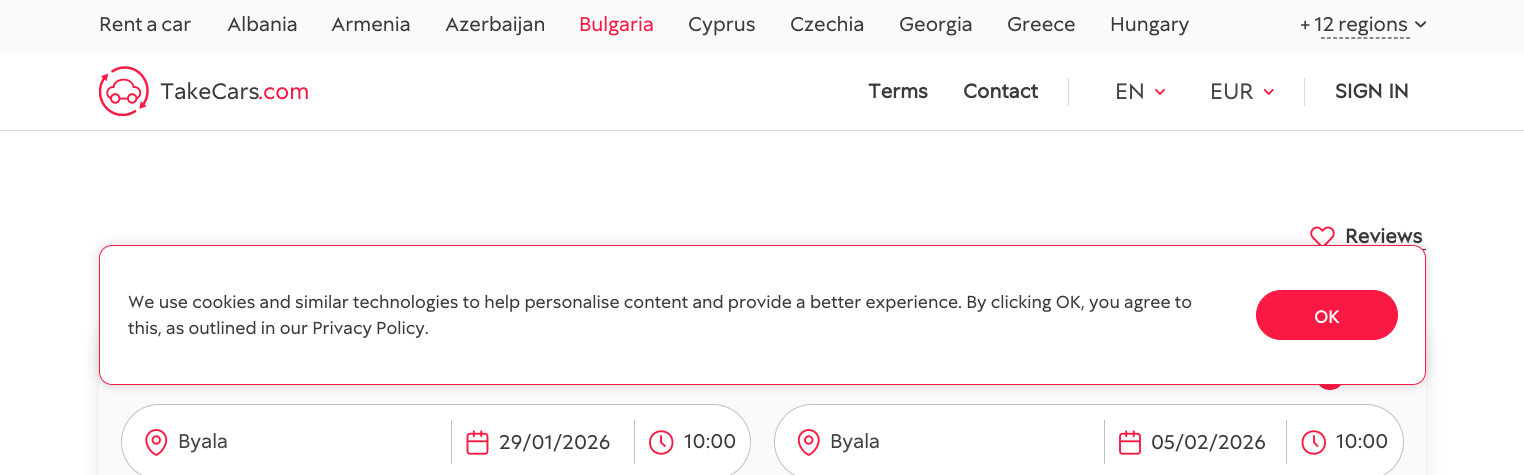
import math
import cairo

surface = cairo.ImageSurface(cairo.FORMAT_RGB24, 1524, 475)
ctx = cairo.Context(surface)
options = cairo.FontOptions()
options.set_hint_metrics(cairo.HINT_METRICS_OFF)
options.set_hint_style(cairo.HINT_STYLE_NONE)
ctx.set_font_options(options)
ctx.set_miter_limit(4)


def set_color(code):
    ctx.set_source_rgb(*(v / 255 for v in bytes.fromhex(code[-6:])))


def draw_text(x, y, s, family, size, color, bold=False, italic=False):
    ctx.select_font_face(family, cairo.FONT_SLANT_ITALIC if italic else cairo.FONT_SLANT_NORMAL, cairo.FONT_WEIGHT_BOLD if bold else cairo.FONT_WEIGHT_NORMAL)
    ctx.set_font_size(size)
    set_color(color)
    ctx.move_to(x, y)
    ctx.show_text(s)


def draw_spaced(x, y, s, letter, word):
    ctx.move_to(x, y)
    for ch in s:
        ctx.show_text(ch)
        ctx.rel_move_to(letter + word * (ch == ' '), 0)


def fill_rect(x, y, w, h, color):
    set_color(color)
    ctx.rectangle(x, y, w, h)
    ctx.fill()


def rounded_rect(x, y, w, h, r):
    ctx.new_sub_path()
    for i, (u, v) in enumerate([(x + w - r, y + h - r), (x + r, y + h - r), (x + r, y + r), (x + w - r, y + r)]):
        ctx.arc(u, v, r, i * math.pi / 2, (i + 1) * math.pi / 2)
    ctx.close_path()


def draw_shadow(x, y, w, h, r, blur, alpha):
    ctx.push_group_with_content(cairo.CONTENT_ALPHA)
    ctx.set_operator(cairo.OPERATOR_SOURCE)
    for i in range(15, -16, -2):
        e = blur * i / 6
        if min(w, h) + 2 * e > 0:
            ctx.set_source_rgba(0, 0, 0, alpha * math.erfc((i - 1) / 8.5) / 2)
            rounded_rect(x - e, y - e, w + 2 * e, h + 2 * e, max(0, min(r + e + blur * .6, min(w, h) / 2 + e)))
            ctx.fill()
    ctx.mask(ctx.pop_group())


def draw_image(path, x, y, w, h):
    ctx.save()
    ctx.set_source_surface(cairo.ImageSurface.create_from_png(path), x, y)
    ctx.rectangle(x, y, w, h)
    ctx.fill()
    ctx.restore()


set_color("#ffffff")
ctx.paint()
fill_rect(0, 0, 1524, 53, "#fafafa")
ctx.select_font_face("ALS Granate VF")
ctx.set_font_size(20)
set_color("#3a3a3a")
draw_spaced(99, 31, "Rent a car", 0, -1)
draw_text(227, 31, "Albania", "ALS Granate VF", 20, "#3a3a3a")
draw_text(331, 31, "Armenia", "ALS Granate VF", 20, "#3a3a3a")
draw_text(445, 31, "Azerbaijan", "ALS Granate VF", 20, "#3a3a3a")
draw_text(579, 31, "Bulgaria", "ALS Granate VF", 20, "#f91942")
draw_text(688, 31, "Cyprus", "ALS Granate VF", 20, "#3a3a3a")
draw_text(790, 31, "Czechia", "ALS Granate VF", 20, "#3a3a3a")
draw_text(899, 31, "Georgia", "ALS Granate VF", 20, "#3a3a3a")
draw_text(1007, 31, "Greece", "ALS Granate VF", 20, "#3a3a3a")
draw_text(1110, 31, "Hungary", "ALS Granate VF", 20, "#3a3a3a")
draw_spaced(1300, 31, "+ 12 regions", 0, -1)
draw_image("assets/img1.png", 1415, 21, 11, 7)
ctx.new_path()
ctx.move_to(1321, 38)
ctx.line_to(1410, 38)
ctx.set_line_width(1.2)
ctx.set_dash([3.75, 2.33])
ctx.stroke()
fill_rect(0, 130, 1524, 1, "#dcdcdc")
draw_image("assets/img2.png", 99, 66, 50, 50)
draw_text(160, 99, "TakeCars", "ALS Granate VF", 22.5, "#3a3a3a")
draw_text(258, 99, ".com", "ALS Granate VF", 22.5, "#f91942")
fill_rect(1068, 78, 1, 28, "#dcdcdc")
draw_text(868, 98, "Terms", "ALS Granate VF", 20, "#3a3a3a", bold=True)
draw_text(963, 98, "Contact", "ALS Granate VF", 20, "#3a3a3a", bold=True)
draw_text(1115, 99, "EN", "ALS Granate VF", 22.5, "#444444")
draw_image("assets/img3.png", 1155, 89, 10, 6)
draw_text(1210, 99, "EUR", "ALS Granate VF", 22.5, "#444444")
draw_image("assets/img4.png", 1264, 89, 10, 6)
fill_rect(1304, 78, 1, 28, "#dcdcdc")
ctx.select_font_face("ALS Granate VF", cairo.FONT_SLANT_NORMAL, cairo.FONT_WEIGHT_BOLD)
ctx.set_font_size(20)
set_color("#3a3a3a")
draw_spaced(1335, 98, "SIGN IN", 0, 1)
draw_image("assets/img5.png", 1310, 226, 25, 19)
ctx.new_path()
ctx.move_to(1345, 249.5)
ctx.line_to(1426, 249.5)
ctx.set_dash([3.75, 2.71])
ctx.stroke()
draw_text(1345, 243, "Reviews", "ALS Granate VF", 20, "#3a3a3a", bold=True)
set_color("#000000")
draw_shadow(99, 334, 1327, 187, 13, 11, 0.1)
fill_rect(99, 372, 1327, 103, "#fafafa")
set_color("#ffffff")
rounded_rect(121.5, 404.5, 629, 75, 37.5)
ctx.fill_preserve()
set_color("#c0c0c0")
ctx.set_line_width(1)
ctx.set_dash([])
ctx.stroke()
fill_rect(451, 420, 1, 44, "#c0c0c0")
draw_image("assets/img6.png", 145, 429, 23, 27)
draw_text(178, 448, "Byala", "ALS Granate VF", 20, "#444444")
fill_rect(634, 420, 1, 44, "#c0c0c0")
draw_image("assets/img7.png", 466, 430, 23, 25)
draw_text(499, 449, "29/01/2026", "ALS Granate VF", 20, "#3a3a3a")
ctx.new_path()
ctx.move_to(661, 436)
ctx.line_to(661, 442.5)
ctx.line_to(665, 446)
ctx.move_to(672.5, 442.5)
ctx.curve_to(672.5, 457.5, 650, 457.5, 650, 442.5)
ctx.curve_to(650, 427.5, 672.5, 427.5, 672.5, 442.5)
ctx.close_path()
set_color("#f91942")
ctx.set_line_width(1.9)
ctx.set_line_cap(cairo.LINE_CAP_ROUND)
ctx.set_line_join(cairo.LINE_JOIN_ROUND)
ctx.stroke()
draw_text(684, 448, "10:00", "ALS Granate VF", 20, "#3a3a3a")
set_color("#f91942")
rounded_rect(1316, 363, 28, 27, 13.5)
ctx.fill()
set_color("#ffffff")
rounded_rect(774.5, 404.5, 629, 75, 37.5)
ctx.fill_preserve()
set_color("#c0c0c0")
ctx.set_line_width(1)
ctx.set_line_cap(cairo.LINE_CAP_BUTT)
ctx.set_line_join(cairo.LINE_JOIN_MITER)
ctx.stroke()
fill_rect(1104, 420, 1, 44, "#c0c0c0")
draw_image("assets/img8.png", 798, 429, 22, 27)
draw_text(830, 448, "Byala", "ALS Granate VF", 20, "#444444")
fill_rect(1286, 420, 1, 44, "#c0c0c0")
draw_image("assets/img9.png", 1119, 430, 22, 25)
draw_text(1151, 449, "05/02/2026", "ALS Granate VF", 20, "#3a3a3a")
ctx.new_path()
ctx.move_to(1314, 436)
ctx.line_to(1314, 442.5)
ctx.line_to(1317.5, 446)
ctx.move_to(1325, 442.5)
ctx.curve_to(1325, 457.5, 1302.5, 457.5, 1302.5, 442.5)
ctx.curve_to(1302.5, 427.5, 1325, 427.5, 1325, 442.5)
ctx.close_path()
set_color("#f91942")
ctx.set_line_width(1.9)
ctx.set_line_cap(cairo.LINE_CAP_ROUND)
ctx.set_line_join(cairo.LINE_JOIN_ROUND)
ctx.stroke()
draw_text(1336, 448, "10:00", "ALS Granate VF", 20, "#3a3a3a")
set_color("#000000")
draw_shadow(99, 245, 1327, 140, 13, 6, 0.16)
set_color("#ffffff")
rounded_rect(99.5, 245.5, 1326, 139, 12.5)
ctx.fill_preserve()
set_color("#f91942")
ctx.set_line_width(1)
ctx.set_line_cap(cairo.LINE_CAP_BUTT)
ctx.set_line_join(cairo.LINE_JOIN_MITER)
ctx.stroke()
draw_text(128, 308, "We use cookies and similar technologies to help personalise content and provide a better experience. By clicking OK, you agree to", "ALS Granate VF", 17.5, "#3a3a3a")
draw_text(128, 334, "this, as outlined in our Privacy Policy.", "ALS Granate VF", 17.5, "#3a3a3a")
set_color("#f91942")
rounded_rect(1256.5, 290.5, 141, 49, 24.5)
ctx.fill_preserve()
ctx.stroke()
draw_text(1314, 323, "OK", "ALS Granate VF", 17.5, "#ffffff", bold=True)
surface.write_to_png("output.png")
